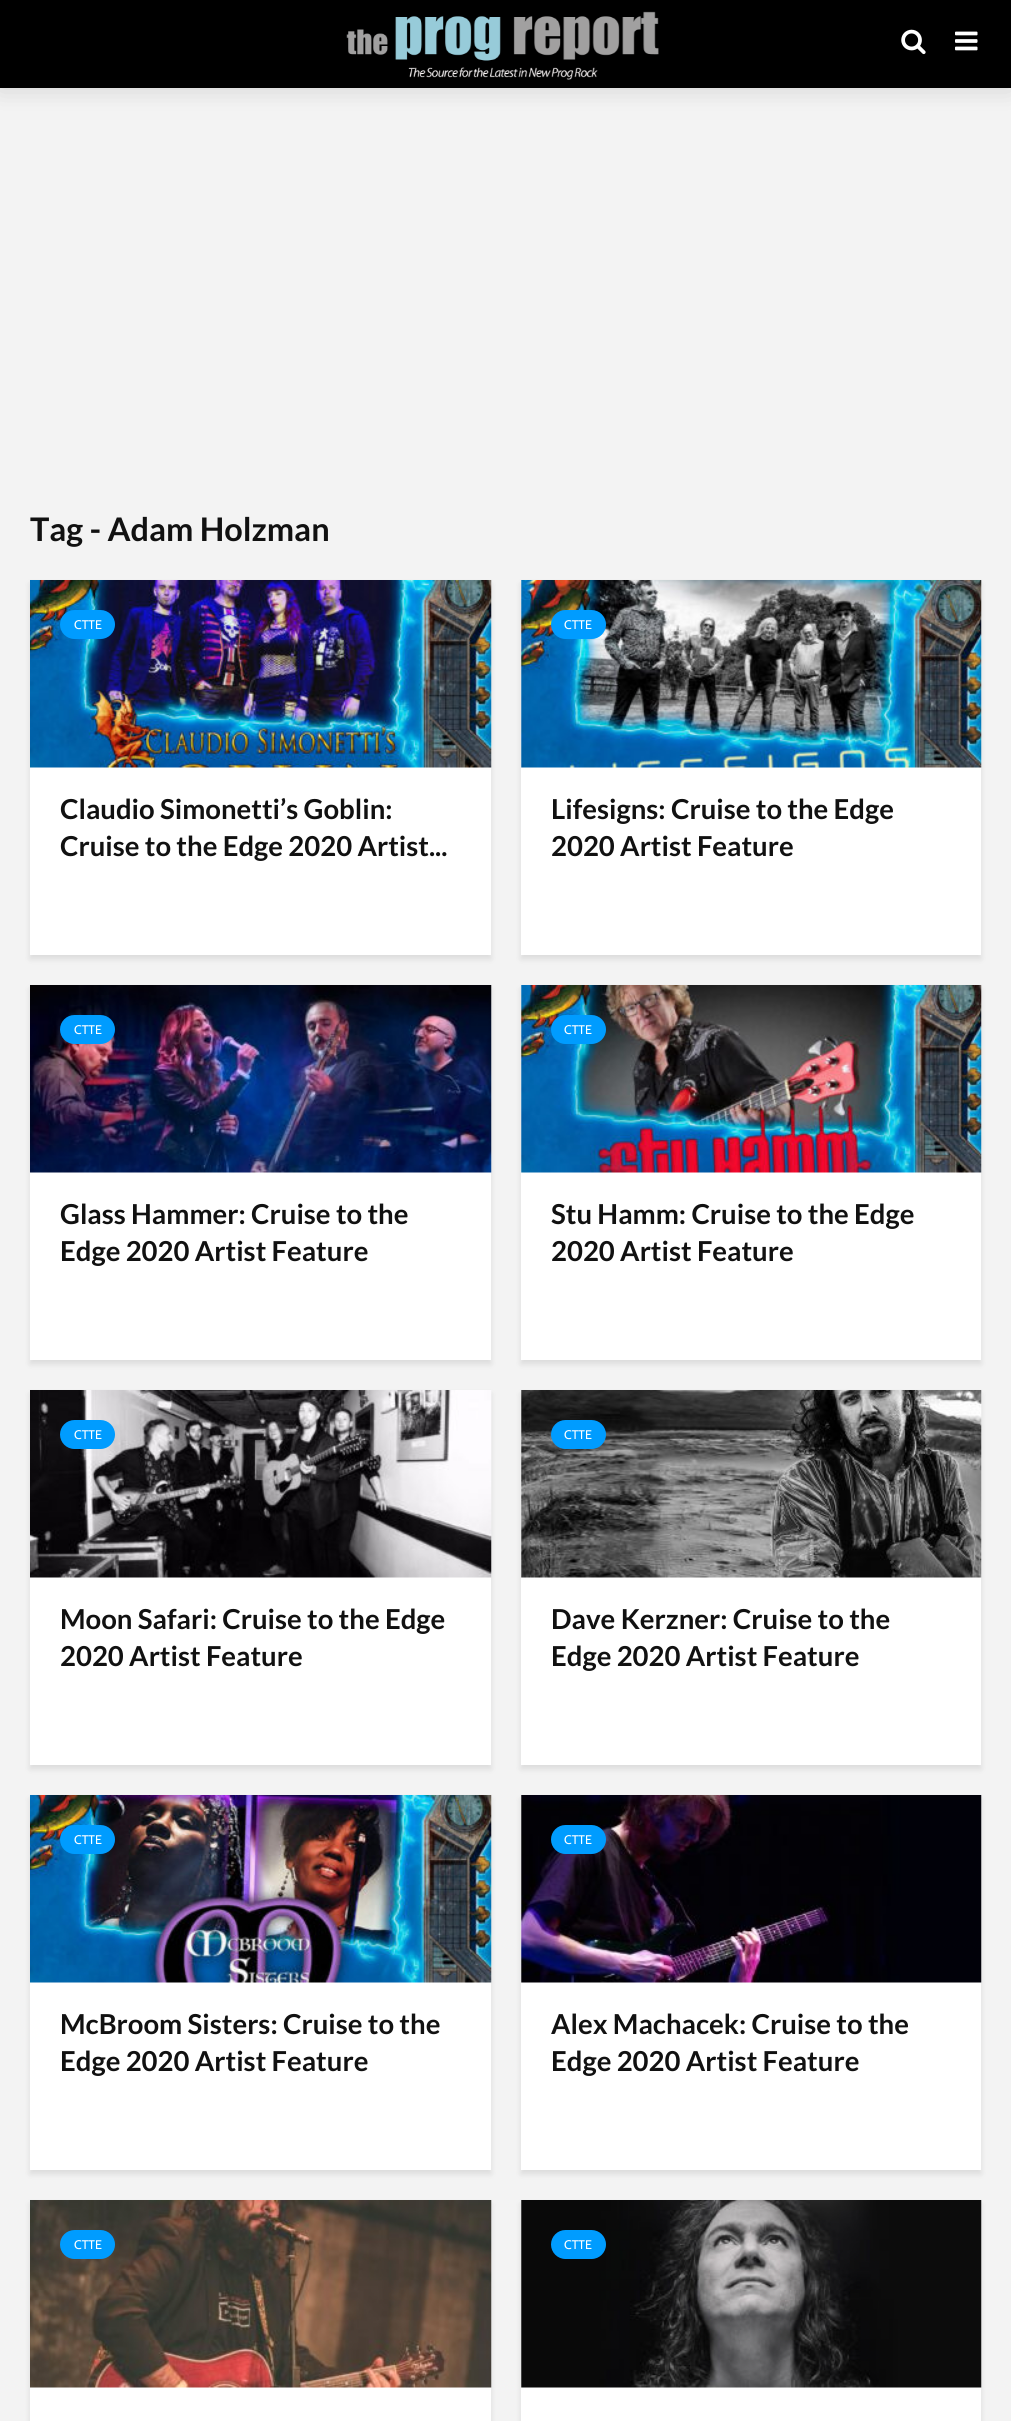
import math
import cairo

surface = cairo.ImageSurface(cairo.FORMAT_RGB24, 1011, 2421)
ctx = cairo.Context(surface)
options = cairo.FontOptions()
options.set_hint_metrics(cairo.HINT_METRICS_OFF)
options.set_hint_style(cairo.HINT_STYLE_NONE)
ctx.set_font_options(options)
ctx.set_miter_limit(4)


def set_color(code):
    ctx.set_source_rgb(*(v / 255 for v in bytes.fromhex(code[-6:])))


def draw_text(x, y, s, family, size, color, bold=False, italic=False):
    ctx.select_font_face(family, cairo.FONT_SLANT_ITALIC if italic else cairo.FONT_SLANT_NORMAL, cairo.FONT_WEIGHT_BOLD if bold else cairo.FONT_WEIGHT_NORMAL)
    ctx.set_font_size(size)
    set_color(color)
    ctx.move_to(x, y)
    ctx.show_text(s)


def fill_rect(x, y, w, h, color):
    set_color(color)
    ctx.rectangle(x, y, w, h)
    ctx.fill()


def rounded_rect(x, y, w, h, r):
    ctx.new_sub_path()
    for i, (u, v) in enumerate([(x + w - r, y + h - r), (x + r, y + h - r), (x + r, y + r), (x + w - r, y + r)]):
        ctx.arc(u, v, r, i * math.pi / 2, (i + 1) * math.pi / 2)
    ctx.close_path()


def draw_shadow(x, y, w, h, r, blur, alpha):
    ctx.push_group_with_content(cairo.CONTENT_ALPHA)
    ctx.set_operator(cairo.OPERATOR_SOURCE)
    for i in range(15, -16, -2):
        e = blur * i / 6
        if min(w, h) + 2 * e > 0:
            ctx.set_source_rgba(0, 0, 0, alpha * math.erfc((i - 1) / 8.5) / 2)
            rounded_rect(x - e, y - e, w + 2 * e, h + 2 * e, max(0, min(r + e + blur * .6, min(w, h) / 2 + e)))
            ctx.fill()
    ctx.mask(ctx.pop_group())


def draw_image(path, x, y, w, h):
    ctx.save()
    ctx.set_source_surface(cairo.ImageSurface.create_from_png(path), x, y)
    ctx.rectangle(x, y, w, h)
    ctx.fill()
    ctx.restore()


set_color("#f3f3f3")
ctx.paint()
set_color("#000000")
draw_shadow(0, 0, 1011, 88, 0, 12.5, 0.15)
fill_rect(0, 0, 1011, 88, "#000000")
draw_image("assets/img1.png", 346, 11, 313, 69)
draw_image("assets/img2.png", 901, 29, 25, 26)
draw_image("assets/img3.png", 955, 31, 23, 20)
draw_text(30, 541, "Tag - Adam Holzman", "Lato", 32.5, "#111111", bold=True)
set_color("#000101")
draw_shadow(30, 584, 461, 375, 0, 3, 0.1)
fill_rect(30, 767, 461, 188, "#ffffff")
draw_image("assets/img4.png", 30, 580, 462, 188)
set_color("#009cff")
rounded_rect(60, 610, 55, 29, 14.5)
ctx.fill()
draw_text(74, 629, "CTTE", "Cabin", 12.5, "#ffffff")
draw_text(60, 819, "Claudio Simonetti’s Goblin:", "Lato", 27.5, "#111111", bold=True)
draw_text(60, 856, "Cruise to the Edge 2020 Artist...", "Lato", 27.5, "#111111", bold=True)
set_color("#000101")
draw_shadow(521, 584, 460, 375, 0, 3, 0.1)
fill_rect(521, 580, 460, 375, "#ffffff")
draw_image("assets/img5.png", 521, 580, 461, 188)
set_color("#009cff")
rounded_rect(551, 610, 55, 29, 14.5)
ctx.fill()
draw_text(564, 629, "CTTE", "Cabin", 12.5, "#ffffff")
draw_text(551, 819, "Lifesigns: Cruise to the Edge", "Lato", 27.5, "#111111", bold=True)
draw_text(551, 856, "2020 Artist Feature", "Lato", 27.5, "#111111", bold=True)
set_color("#000101")
draw_shadow(30, 989, 461, 375, 0, 3, 0.1)
fill_rect(30, 1172, 461, 188, "#ffffff")
draw_image("assets/img6.png", 30, 985, 462, 188)
set_color("#009cff")
rounded_rect(60, 1015, 55, 29, 14.5)
ctx.fill()
draw_text(74, 1034, "CTTE", "Cabin", 12.5, "#ffffff")
draw_text(60, 1224, "Glass Hammer: Cruise to the", "Lato", 27.5, "#111111", bold=True)
draw_text(60, 1261, "Edge 2020 Artist Feature", "Lato", 27.5, "#111111", bold=True)
set_color("#000101")
draw_shadow(521, 989, 460, 375, 0, 3, 0.1)
fill_rect(521, 985, 460, 375, "#ffffff")
draw_image("assets/img7.png", 521, 985, 461, 188)
set_color("#009cff")
rounded_rect(551, 1015, 55, 29, 14.5)
ctx.fill()
draw_text(564, 1034, "CTTE", "Cabin", 12.5, "#ffffff")
draw_text(551, 1224, "Stu Hamm: Cruise to the Edge", "Lato", 27.5, "#111111", bold=True)
draw_text(551, 1261, "2020 Artist Feature", "Lato", 27.5, "#111111", bold=True)
set_color("#000101")
draw_shadow(30, 1394, 461, 375, 0, 3, 0.1)
fill_rect(30, 1577, 461, 188, "#ffffff")
draw_image("assets/img8.png", 30, 1390, 462, 188)
set_color("#009cff")
rounded_rect(60, 1420, 55, 29, 14.5)
ctx.fill()
draw_text(74, 1439, "CTTE", "Cabin", 12.5, "#ffffff")
draw_text(60, 1629, "Moon Safari: Cruise to the Edge", "Lato", 27.5, "#111111", bold=True)
draw_text(60, 1666, "2020 Artist Feature", "Lato", 27.5, "#111111", bold=True)
set_color("#000101")
draw_shadow(521, 1394, 460, 375, 0, 3, 0.1)
fill_rect(521, 1390, 460, 375, "#ffffff")
draw_image("assets/img9.png", 521, 1390, 461, 188)
set_color("#009cff")
rounded_rect(551, 1420, 55, 29, 14.5)
ctx.fill()
draw_text(564, 1439, "CTTE", "Cabin", 12.5, "#ffffff")
draw_text(551, 1629, "Dave Kerzner: Cruise to the", "Lato", 27.5, "#111111", bold=True)
draw_text(551, 1666, "Edge 2020 Artist Feature", "Lato", 27.5, "#111111", bold=True)
set_color("#000101")
draw_shadow(30, 1799, 461, 375, 0, 3, 0.1)
fill_rect(30, 1982, 461, 188, "#ffffff")
draw_image("assets/img10.png", 30, 1795, 462, 188)
set_color("#009cff")
rounded_rect(60, 1825, 55, 29, 14.5)
ctx.fill()
draw_text(74, 1844, "CTTE", "Cabin", 12.5, "#ffffff")
draw_text(60, 2034, "McBroom Sisters: Cruise to the", "Lato", 27.5, "#111111", bold=True)
draw_text(60, 2071, "Edge 2020 Artist Feature", "Lato", 27.5, "#111111", bold=True)
set_color("#000101")
draw_shadow(521, 1799, 460, 375, 0, 3, 0.1)
fill_rect(521, 1795, 460, 375, "#ffffff")
draw_image("assets/img11.png", 521, 1795, 461, 188)
set_color("#009cff")
rounded_rect(551, 1825, 55, 29, 14.5)
ctx.fill()
draw_text(564, 1844, "CTTE", "Cabin", 12.5, "#ffffff")
draw_text(551, 2034, "Alex Machacek: Cruise to the", "Lato", 27.5, "#111111", bold=True)
draw_text(551, 2071, "Edge 2020 Artist Feature", "Lato", 27.5, "#111111", bold=True)
set_color("#000101")
draw_shadow(30, 2204, 461, 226, 0, 3, 0.1)
fill_rect(30, 2387, 461, 34, "#ffffff")
draw_image("assets/img12.png", 30, 2200, 462, 188)
set_color("#009cff")
rounded_rect(60, 2230, 55, 29, 14.5)
ctx.fill()
draw_text(74, 2249, "CTTE", "Cabin", 12.5, "#ffffff")
set_color("#000101")
draw_shadow(521, 2204, 460, 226, 0, 3, 0.1)
fill_rect(521, 2200, 460, 221, "#ffffff")
draw_image("assets/img13.png", 521, 2200, 461, 188)
set_color("#009cff")
rounded_rect(551, 2230, 55, 29, 14.5)
ctx.fill()
draw_text(564, 2249, "CTTE", "Cabin", 12.5, "#ffffff")
surface.write_to_png("output.png")
